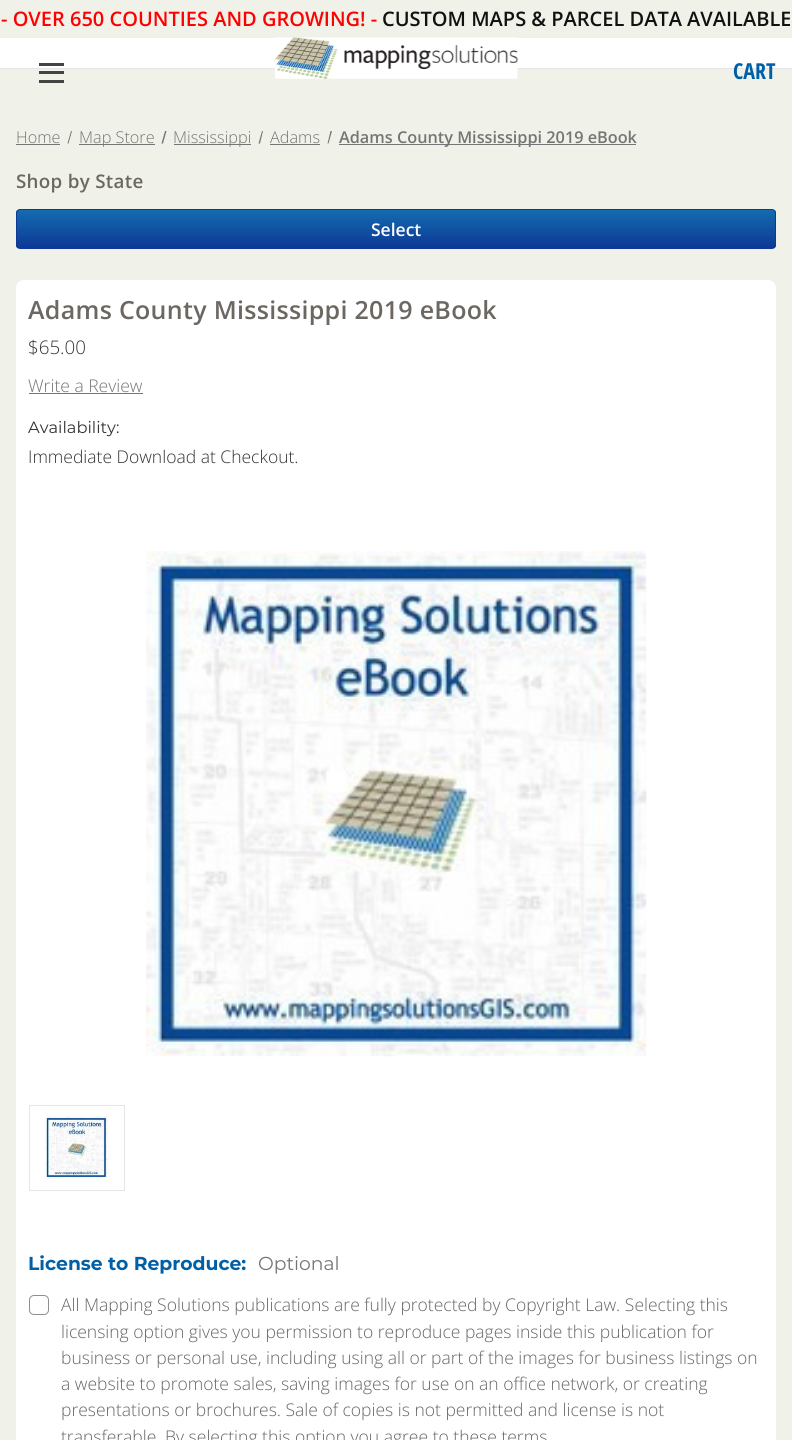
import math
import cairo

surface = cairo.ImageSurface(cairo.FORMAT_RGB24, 792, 1440)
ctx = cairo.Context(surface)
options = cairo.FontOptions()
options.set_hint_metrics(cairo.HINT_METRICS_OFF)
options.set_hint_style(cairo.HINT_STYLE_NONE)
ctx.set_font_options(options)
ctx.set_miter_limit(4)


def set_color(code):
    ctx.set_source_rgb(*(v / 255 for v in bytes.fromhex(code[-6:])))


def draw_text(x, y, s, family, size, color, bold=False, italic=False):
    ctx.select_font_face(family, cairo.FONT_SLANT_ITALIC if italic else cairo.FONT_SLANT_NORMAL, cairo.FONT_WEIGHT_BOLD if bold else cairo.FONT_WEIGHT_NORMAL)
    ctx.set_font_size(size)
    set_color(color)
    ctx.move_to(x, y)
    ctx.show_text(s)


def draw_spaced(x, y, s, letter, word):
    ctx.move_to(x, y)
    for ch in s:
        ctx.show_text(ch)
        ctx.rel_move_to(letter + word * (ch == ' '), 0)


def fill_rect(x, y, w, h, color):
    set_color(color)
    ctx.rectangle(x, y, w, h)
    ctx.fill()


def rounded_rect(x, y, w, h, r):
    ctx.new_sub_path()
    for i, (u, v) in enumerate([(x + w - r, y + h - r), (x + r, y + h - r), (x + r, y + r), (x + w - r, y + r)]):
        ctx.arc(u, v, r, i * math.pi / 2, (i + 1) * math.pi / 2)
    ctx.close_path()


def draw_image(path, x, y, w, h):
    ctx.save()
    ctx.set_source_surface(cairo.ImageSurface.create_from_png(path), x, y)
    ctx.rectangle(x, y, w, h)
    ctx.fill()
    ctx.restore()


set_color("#f0f1e9")
ctx.paint()
fill_rect(0, 38, 792, 30, "#ffffff")
fill_rect(0, 68, 792, 1, "#e5e5e5")
draw_text(1, 26, "- OVER 650 COUNTIES AND GROWING! -", "Open Sans SemiBold", 20, "#ff0000")
draw_text(382, 26, "CUSTOM MAPS & PARCEL DATA AVAILABLE", "Open Sans SemiBold", 20, "#111111")
fill_rect(39, 71, 25, 3, "#444444")
fill_rect(39, 63, 25, 3, "#444444")
fill_rect(39, 80, 25, 3, "#444444")
draw_image("assets/img1.png", 275, 37, 243, 42)
draw_text(733, 79, "CART", "Open Sans Condensed", 22, "#0060a7", bold=True)
draw_text(16, 143, "Home", "Open Sans Light", 16.25, "#757575")
fill_rect(16, 144, 44, 1, "#757575")
ctx.new_path()
ctx.move_to(71, 131)
ctx.line_to(72, 131)
ctx.line_to(68.5, 143.5)
ctx.line_to(67.5, 143.5)
ctx.close_path()
ctx.fill()
fill_rect(79, 144, 76, 1, "#757575")
draw_text(79, 143, "Map Store", "Open Sans Light", 16.25, "#757575")
ctx.new_path()
ctx.move_to(165, 131)
ctx.line_to(166.5, 131)
ctx.line_to(163, 143.5)
ctx.line_to(161.5, 143.5)
ctx.close_path()
ctx.fill()
fill_rect(174, 144, 77, 1, "#757575")
draw_text(173, 143, "Mississippi", "Open Sans Light", 16.25, "#757575")
ctx.new_path()
ctx.move_to(262, 131)
ctx.line_to(263, 131)
ctx.line_to(260, 143.5)
ctx.line_to(258.5, 143.5)
ctx.close_path()
ctx.fill()
draw_text(270, 143, "Adams", "Open Sans Light", 16.25, "#757575")
fill_rect(270, 144, 50, 1, "#757575")
ctx.new_path()
ctx.move_to(330.5, 131)
ctx.line_to(332, 131)
ctx.line_to(328.5, 143.5)
ctx.line_to(327.5, 143.5)
ctx.close_path()
ctx.fill()
fill_rect(339, 144, 297, 1, "#757575")
draw_text(339, 143, "Adams County Mississippi 2019 eBook", "Open Sans SemiBold", 16.25, "#757575")
ctx.set_font_size(18.75)
set_color("#6d6762")
draw_spaced(16, 188, "Shop by State", 0.3, 0)
ctx.save()
rounded_rect(16, 209, 760, 40, 4)
ctx.clip()
gradient = cairo.LinearGradient(396, 210, 396, 248)
gradient.add_color_stop_rgba(0, 0.078, 0.424, 0.686, 1)
gradient.add_color_stop_rgba(1, 0.051, 0.22, 0.584, 1)
ctx.set_source(gradient)
ctx.rectangle(16, 210, 760, 38)
ctx.fill()
ctx.restore()
rounded_rect(16.5, 209.5, 759, 39, 3.5)
set_color("#0d3895")
ctx.set_line_width(1)
ctx.stroke()
draw_text(371, 236, "Select", "Open Sans SemiBold", 17.5, "#ffffff")
rounded_rect(16, 280, 760, 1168, 8)
ctx.fill()
ctx.set_font_size(25)
set_color("#6d6762")
draw_spaced(28, 319, "Adams County Mississippi 2019 eBook", 0.3, 0)
draw_text(28, 354, "$65.00", "Open Sans Light", 18.75, "#333333")
draw_text(28, 392, "Write a Review", "Open Sans Light", 17.5, "#757575")
fill_rect(29, 393, 114, 1, "#757575")
draw_text(28, 433, "Availability:", "Montserrat", 16.25, "#333333")
draw_text(28, 463, "Immediate Download at Checkout.", "Open Sans Light", 17.5, "#333333")
draw_image("assets/img2.png", 146, 551, 501, 506)
ctx.rectangle(29.5, 1105.5, 95, 85)
set_color("#e5e5e5")
ctx.stroke()
draw_image("assets/img3.png", 45, 1116, 63, 63)
draw_text(28, 1270, "License to Reproduce:", "Montserrat", 18.75, "#0060a7", bold=True)
draw_text(258, 1270, "Optional", "Montserrat", 18.75, "#757575")
rounded_rect(29.5, 1295.5, 19, 19, 4.5)
set_color("#8f8f8f")
ctx.stroke()
draw_text(61, 1311, "All Mapping Solutions publications are fully protected by Copyright Law. Selecting this", "Open Sans Light", 17.5, "#666666")
draw_text(61, 1338, "licensing option gives you permission to reproduce pages inside this publication for", "Open Sans Light", 17.5, "#666666")
draw_text(61, 1364, "business or personal use, including using all or part of the images for business listings on", "Open Sans Light", 17.5, "#666666")
draw_text(61, 1390, "a website to promote sales, saving images for use on an office network, or creating", "Open Sans Light", 17.5, "#666666")
draw_text(61, 1416, "presentations or brochures. Sale of copies is not permitted and license is not", "Open Sans Light", 17.5, "#666666")
draw_text(61, 1443, "transferable. By selecting this option you agree to these terms", "Open Sans Light", 17.5, "#666666")
surface.write_to_png("output.png")
